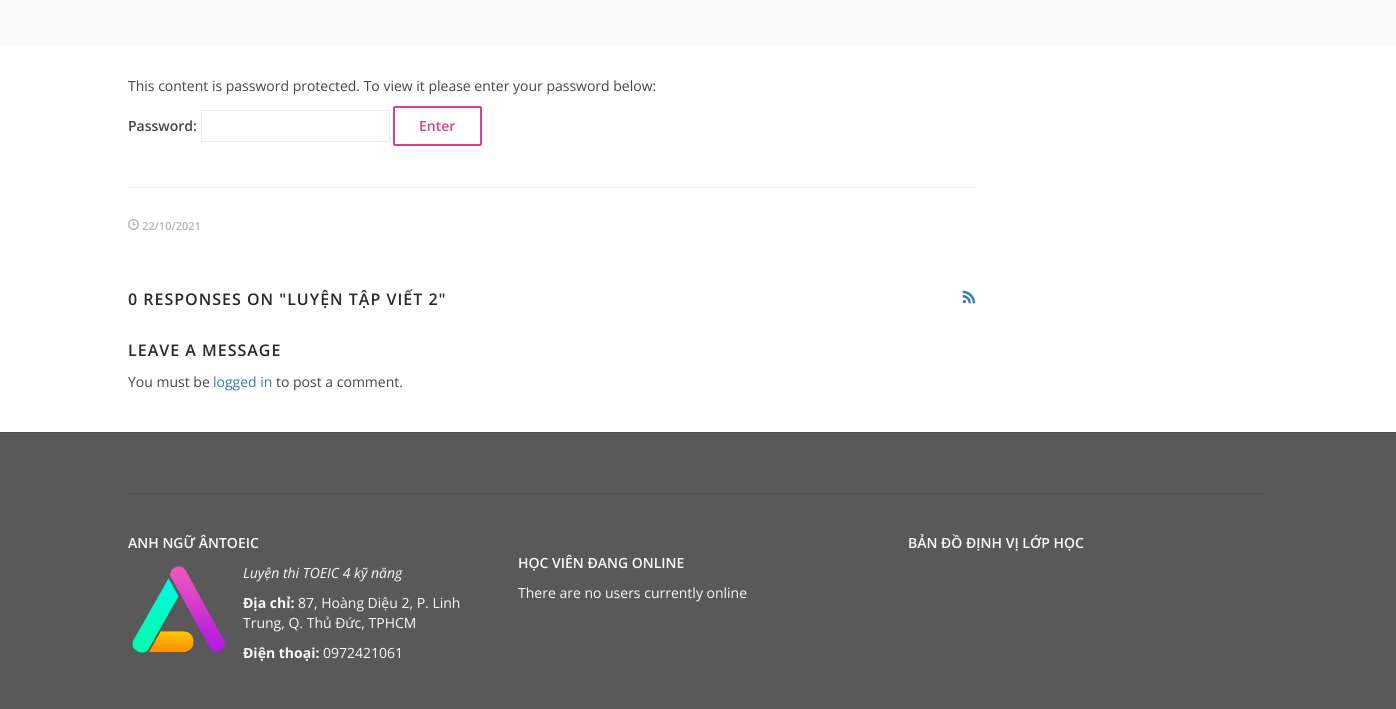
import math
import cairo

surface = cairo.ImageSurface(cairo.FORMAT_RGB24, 1396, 709)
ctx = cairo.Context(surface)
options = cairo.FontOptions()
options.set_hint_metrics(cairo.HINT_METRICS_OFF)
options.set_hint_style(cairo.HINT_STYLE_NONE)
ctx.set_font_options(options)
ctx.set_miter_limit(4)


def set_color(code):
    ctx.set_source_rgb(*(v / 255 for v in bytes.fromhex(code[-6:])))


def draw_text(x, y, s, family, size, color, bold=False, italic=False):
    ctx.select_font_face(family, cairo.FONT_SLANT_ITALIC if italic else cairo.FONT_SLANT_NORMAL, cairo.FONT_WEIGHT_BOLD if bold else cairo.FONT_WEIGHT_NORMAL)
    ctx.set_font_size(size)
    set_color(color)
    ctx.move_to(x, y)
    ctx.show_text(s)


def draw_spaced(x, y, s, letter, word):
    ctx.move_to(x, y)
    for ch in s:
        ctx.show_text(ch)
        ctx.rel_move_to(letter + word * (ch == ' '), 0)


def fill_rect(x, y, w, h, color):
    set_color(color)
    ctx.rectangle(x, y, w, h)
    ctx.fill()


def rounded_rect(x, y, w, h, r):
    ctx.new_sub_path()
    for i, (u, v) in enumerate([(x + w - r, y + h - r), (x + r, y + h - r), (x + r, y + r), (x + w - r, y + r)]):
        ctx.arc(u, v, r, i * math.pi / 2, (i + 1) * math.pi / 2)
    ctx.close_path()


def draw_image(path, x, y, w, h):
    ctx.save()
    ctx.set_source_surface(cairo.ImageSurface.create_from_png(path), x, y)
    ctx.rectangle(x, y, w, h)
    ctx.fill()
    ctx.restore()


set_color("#ffffff")
ctx.paint()
fill_rect(0, 0, 1396, 46, "#fafafa")
draw_text(128, 91, "This content is password protected. To view it please enter your password below:", "Open Sans", 14, "#444444")
draw_text(128, 131, "Password:", "Open Sans SemiBold", 14, "#444444")
ctx.rectangle(201.5, 110.5, 188, 31)
set_color("#ebebeb")
ctx.set_line_width(1)
ctx.stroke()
rounded_rect(394, 107, 87, 38, 1)
set_color("#da3f91")
ctx.set_line_width(2)
ctx.stroke()
draw_text(419, 131, "Enter", "Open Sans SemiBold", 14, "#da3f91")
fill_rect(128, 187, 848, 1, "#ebebeb")
draw_image("assets/img1.png", 128, 219, 11, 11)
draw_text(142, 230, "22/10/2021", "Open Sans SemiBold", 11, "#b4b4b4")
ctx.set_font_size(16)
set_color("#282828")
draw_spaced(128, 305, "0 RESPONSES ON \"LUYỆN TẬP VIẾT 2\"", 1, 0)
draw_image("assets/img2.png", 962, 290, 14, 14)
draw_spaced(128, 356, "LEAVE A MESSAGE", 1, 0)
draw_text(128, 387, "You must be", "Open Sans", 14, "#444444")
draw_text(213, 387, "logged in", "Open Sans", 14, "#337ab7")
draw_text(276, 387, "to post a comment.", "Open Sans", 14, "#444444")
fill_rect(0, 433, 1396, 276, "#595959")
fill_rect(0, 432, 1396, 1, "#525252")
fill_rect(128, 493, 1140, 1, "#525252")
draw_text(128, 548, "ANH NGỮ ÂNTOEIC", "Open Sans SemiBold", 14, "#f9f9f9")
draw_image("assets/img3.png", 132, 566, 93, 87)
draw_text(243, 578, "Luyện thi TOEIC 4 kỹ năng", "Open Sans", 14, "#f9f9f9", italic=True)
draw_text(243, 608, "Địa chỉ:", "Open Sans", 14, "#f9f9f9", bold=True)
draw_text(298, 608, "87, Hoàng Diệu 2, P. Linh", "Open Sans", 14, "#f9f9f9")
draw_text(243, 628, "Trung, Q. Thủ Đức, TPHCM", "Open Sans", 14, "#f9f9f9")
draw_text(243, 658, "Điện thoại:", "Open Sans", 14, "#f9f9f9", bold=True)
draw_text(323, 658, "0972421061", "Open Sans", 14, "#f9f9f9")
draw_text(908, 548, "BẢN ĐỒ ĐỊNH VỊ LỚP HỌC", "Open Sans SemiBold", 14, "#f9f9f9")
draw_text(518, 568, "HỌC VIÊN ĐANG ONLINE", "Open Sans SemiBold", 14, "#f9f9f9")
draw_text(518, 598, "There are no users currently online", "Open Sans", 14, "#f9f9f9")
surface.write_to_png("output.png")
